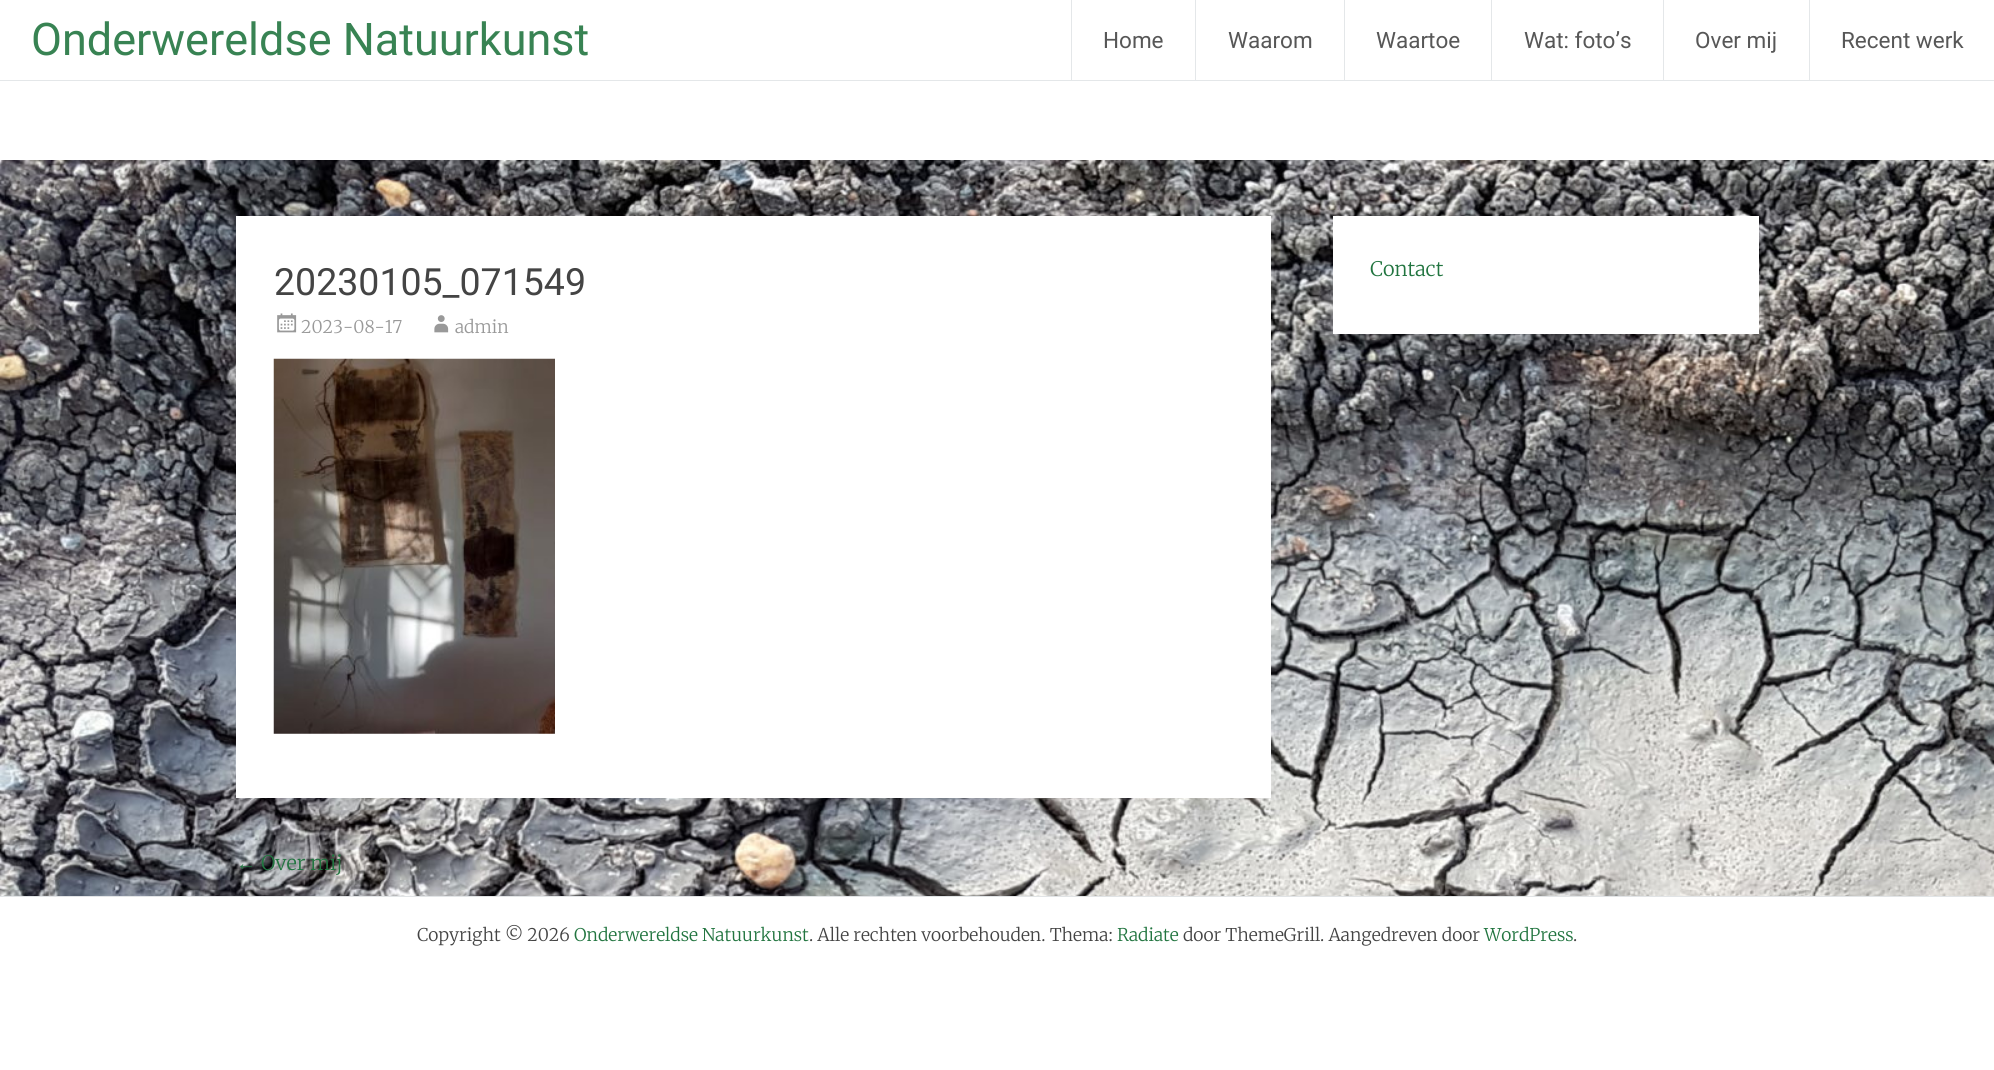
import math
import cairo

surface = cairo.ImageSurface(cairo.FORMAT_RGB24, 1994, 1070)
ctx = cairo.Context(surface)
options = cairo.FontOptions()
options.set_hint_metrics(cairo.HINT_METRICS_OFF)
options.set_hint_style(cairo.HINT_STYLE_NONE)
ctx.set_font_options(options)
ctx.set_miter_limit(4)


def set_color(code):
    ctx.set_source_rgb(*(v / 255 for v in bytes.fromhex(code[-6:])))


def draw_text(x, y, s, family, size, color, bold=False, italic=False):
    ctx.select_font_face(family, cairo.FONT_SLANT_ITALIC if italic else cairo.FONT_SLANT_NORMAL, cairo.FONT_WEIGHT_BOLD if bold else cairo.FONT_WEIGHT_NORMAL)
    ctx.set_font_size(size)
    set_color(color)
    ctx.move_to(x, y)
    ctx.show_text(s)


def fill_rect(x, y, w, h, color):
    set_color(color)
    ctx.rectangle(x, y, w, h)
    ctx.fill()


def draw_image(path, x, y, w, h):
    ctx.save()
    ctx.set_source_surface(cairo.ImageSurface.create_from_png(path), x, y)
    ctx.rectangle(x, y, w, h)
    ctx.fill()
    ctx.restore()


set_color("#ffffff")
ctx.paint()
fill_rect(0, 80, 1994, 1, "#e4e7e9")
draw_text(31, 55, "Onderwereldse Natuurkunst", "Roboto", 45, "#388353")
fill_rect(1071, 0, 1, 80, "#e4e7e9")
draw_text(1103, 48, "Home", "Roboto", 22.5, "#575757")
fill_rect(1195, 0, 1, 80, "#e4e7e9")
draw_text(1228, 48, "Waarom", "Roboto", 22.5, "#575757")
fill_rect(1344, 0, 1, 80, "#e4e7e9")
draw_text(1376, 48, "Waartoe", "Roboto", 22.5, "#575757")
fill_rect(1491, 0, 1, 80, "#e4e7e9")
draw_text(1524, 48, "Wat: foto’s", "Roboto", 22.5, "#575757")
fill_rect(1663, 0, 1, 80, "#e4e7e9")
draw_text(1695, 48, "Over mij", "Roboto", 22.5, "#575757")
fill_rect(1809, 0, 1, 80, "#e4e7e9")
draw_text(1841, 48, "Recent werk", "Roboto", 22.5, "#575757")
draw_image("assets/img1.png", 0, 160, 1994, 736)
fill_rect(236, 216, 1035, 582, "#ffffff")
draw_text(274, 295, "20230105_071549", "Roboto", 37.5, "#444444")
draw_image("assets/img2.png", 277, 313, 20, 20)
draw_text(301, 333, "2023-08-17", "Merriweather Light", 17.5, "#999999")
draw_image("assets/img3.png", 434, 315, 15, 18)
draw_text(455, 333, "admin", "Merriweather Light", 17.5, "#999999")
draw_image("assets/img4.png", 273, 358, 282, 376)
draw_text(236, 870, "←", "Liberation Serif", 20, "#227540")
draw_text(261, 870, "Over mij", "Merriweather Light", 20, "#227540")
fill_rect(1333, 216, 426, 118, "#ffffff")
draw_text(1370, 276, "Contact", "Merriweather Light", 20, "#227540")
fill_rect(0, 896, 1994, 1, "#e1e4e6")
draw_text(417, 941, "Copyright © 2026", "Merriweather Light", 17.5, "#444444")
draw_text(574, 941, "Onderwereldse Natuurkunst", "Merriweather Light", 17.5, "#227540")
draw_text(809, 941, ". Alle rechten voorbehouden. Thema:", "Merriweather Light", 17.5, "#444444")
draw_text(1117, 941, "Radiate", "Merriweather Light", 17.5, "#227540")
draw_text(1183, 941, "door ThemeGrill. Aangedreven door", "Merriweather Light", 17.5, "#444444")
draw_text(1484, 941, "WordPress", "Merriweather Light", 17.5, "#227540")
draw_text(1573, 941, ".", "Merriweather Light", 17.5, "#444444")
surface.write_to_png("output.png")
